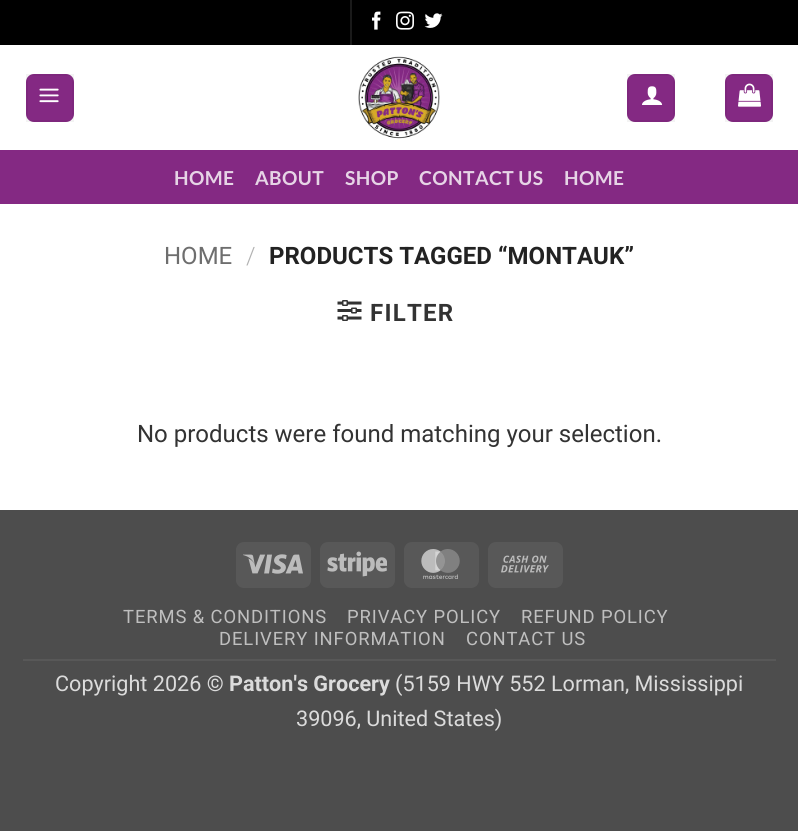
import math
import cairo

surface = cairo.ImageSurface(cairo.FORMAT_RGB24, 798, 831)
ctx = cairo.Context(surface)
options = cairo.FontOptions()
options.set_hint_metrics(cairo.HINT_METRICS_OFF)
options.set_hint_style(cairo.HINT_STYLE_NONE)
ctx.set_font_options(options)
ctx.set_miter_limit(4)


def set_color(code):
    ctx.set_source_rgb(*(v / 255 for v in bytes.fromhex(code[-6:])))


def draw_text(x, y, s, family, size, color, bold=False, italic=False):
    ctx.select_font_face(family, cairo.FONT_SLANT_ITALIC if italic else cairo.FONT_SLANT_NORMAL, cairo.FONT_WEIGHT_BOLD if bold else cairo.FONT_WEIGHT_NORMAL)
    ctx.set_font_size(size)
    set_color(color)
    ctx.move_to(x, y)
    ctx.show_text(s)


def draw_spaced(x, y, s, letter, word):
    ctx.move_to(x, y)
    for ch in s:
        ctx.show_text(ch)
        ctx.rel_move_to(letter + word * (ch == ' '), 0)


def fill_rect(x, y, w, h, color):
    set_color(color)
    ctx.rectangle(x, y, w, h)
    ctx.fill()


def rounded_rect(x, y, w, h, r):
    ctx.new_sub_path()
    for i, (u, v) in enumerate([(x + w - r, y + h - r), (x + r, y + h - r), (x + r, y + r), (x + w - r, y + r)]):
        ctx.arc(u, v, r, i * math.pi / 2, (i + 1) * math.pi / 2)
    ctx.close_path()


def draw_image(path, x, y, w, h):
    ctx.save()
    ctx.set_source_surface(cairo.ImageSurface.create_from_png(path), x, y)
    ctx.rectangle(x, y, w, h)
    ctx.fill()
    ctx.restore()


set_color("#4d4d4d")
ctx.paint()
fill_rect(0, 45, 798, 465, "#ffffff")
fill_rect(0, 0, 798, 45, "#000000")
fill_rect(350, 0, 2, 45, "#1a1a1a")
draw_image("assets/img1.png", 372, 11, 9, 19)
draw_image("assets/img2.png", 396, 11, 18, 19)
draw_image("assets/img3.png", 424, 13, 19, 15)
set_color("#842983")
rounded_rect(26, 74, 48, 48, 8)
ctx.fill()
ctx.rectangle(27, 75, 46, 46)
ctx.set_source_rgba(0, 0, 0, 0.05)
ctx.stroke()
draw_image("assets/img4.png", 39, 88, 20, 15)
draw_image("assets/img5.png", 358, 56, 82, 83)
set_color("#842983")
rounded_rect(627, 74, 48, 48, 8)
ctx.fill()
ctx.rectangle(628, 75, 46, 46)
ctx.set_source_rgba(0, 0, 0, 0.05)
ctx.stroke()
draw_image("assets/img6.png", 642, 86, 21, 19)
set_color("#842983")
rounded_rect(725, 74, 48, 48, 8)
ctx.fill()
ctx.rectangle(726, 75, 46, 46)
ctx.set_source_rgba(0, 0, 0, 0.05)
ctx.stroke()
draw_image("assets/img7.png", 738, 83, 23, 24)
fill_rect(0, 150, 798, 54, "#842983")
ctx.select_font_face("Lato", cairo.FONT_SLANT_NORMAL, cairo.FONT_WEIGHT_BOLD)
ctx.set_font_size(19.25)
set_color("#e6d4e6")
draw_spaced(174, 185, "HOME", 0.4, 0)
draw_spaced(255, 185, "ABOUT", 0.4, 0)
draw_spaced(345, 185, "SHOP", 0.4, 0)
draw_spaced(419, 185, "CONTACT US", 0.4, 0)
draw_spaced(564, 185, "HOME", 0.4, 0)
draw_text(164, 264, "HOME", "Roboto", 24, "#6e6e6e")
draw_text(246, 264, "/", "Roboto Light", 24, "#b2b2b2")
draw_text(269, 264, "PRODUCTS TAGGED “MONTAUK”", "Roboto", 24, "#222222", bold=True)
draw_image("assets/img8.png", 337, 300, 25, 21)
set_color("#333333")
draw_spaced(370, 321, "FILTER", 1.25, 0)
draw_text(137, 442, "No products were found matching your selection.", "Roboto", 24, "#333333")
set_color("#585858")
rounded_rect(236, 542, 75, 46, 8)
ctx.fill()
draw_image("assets/img9.png", 243, 554, 60, 20)
rounded_rect(320, 542, 75, 46, 8)
ctx.fill()
draw_image("assets/img10.png", 327, 551, 60, 26)
rounded_rect(404, 542, 75, 46, 8)
ctx.fill()
draw_image("assets/img11.png", 421, 549, 39, 30)
rounded_rect(488, 542, 75, 46, 8)
ctx.fill()
draw_image("assets/img12.png", 501, 555, 48, 18)
fill_rect(23, 659, 753, 2, "#585858")
ctx.set_font_size(18.4)
set_color("#bfbfbf")
draw_spaced(123, 623, "TERMS & CONDITIONS", 0.9, 0)
draw_spaced(347, 623, "PRIVACY POLICY", 0.9, 0)
draw_spaced(521, 623, "REFUND POLICY", 0.9, 0)
draw_spaced(219, 645, "DELIVERY INFORMATION", 0.9, 0)
draw_spaced(466, 645, "CONTACT US", 0.9, 0)
draw_text(55, 691, "Copyright 2026 ©", "Roboto", 21.6, "#dbdbdb")
draw_text(229, 691, "Patton's Grocery", "Roboto", 21.6, "#dbdbdb", bold=True)
draw_text(395, 691, "(5159 HWY 552 Lorman, Mississippi", "Roboto", 21.6, "#dbdbdb")
draw_text(296, 726, "39096, United States)", "Roboto", 21.6, "#dbdbdb")
surface.write_to_png("output.png")
